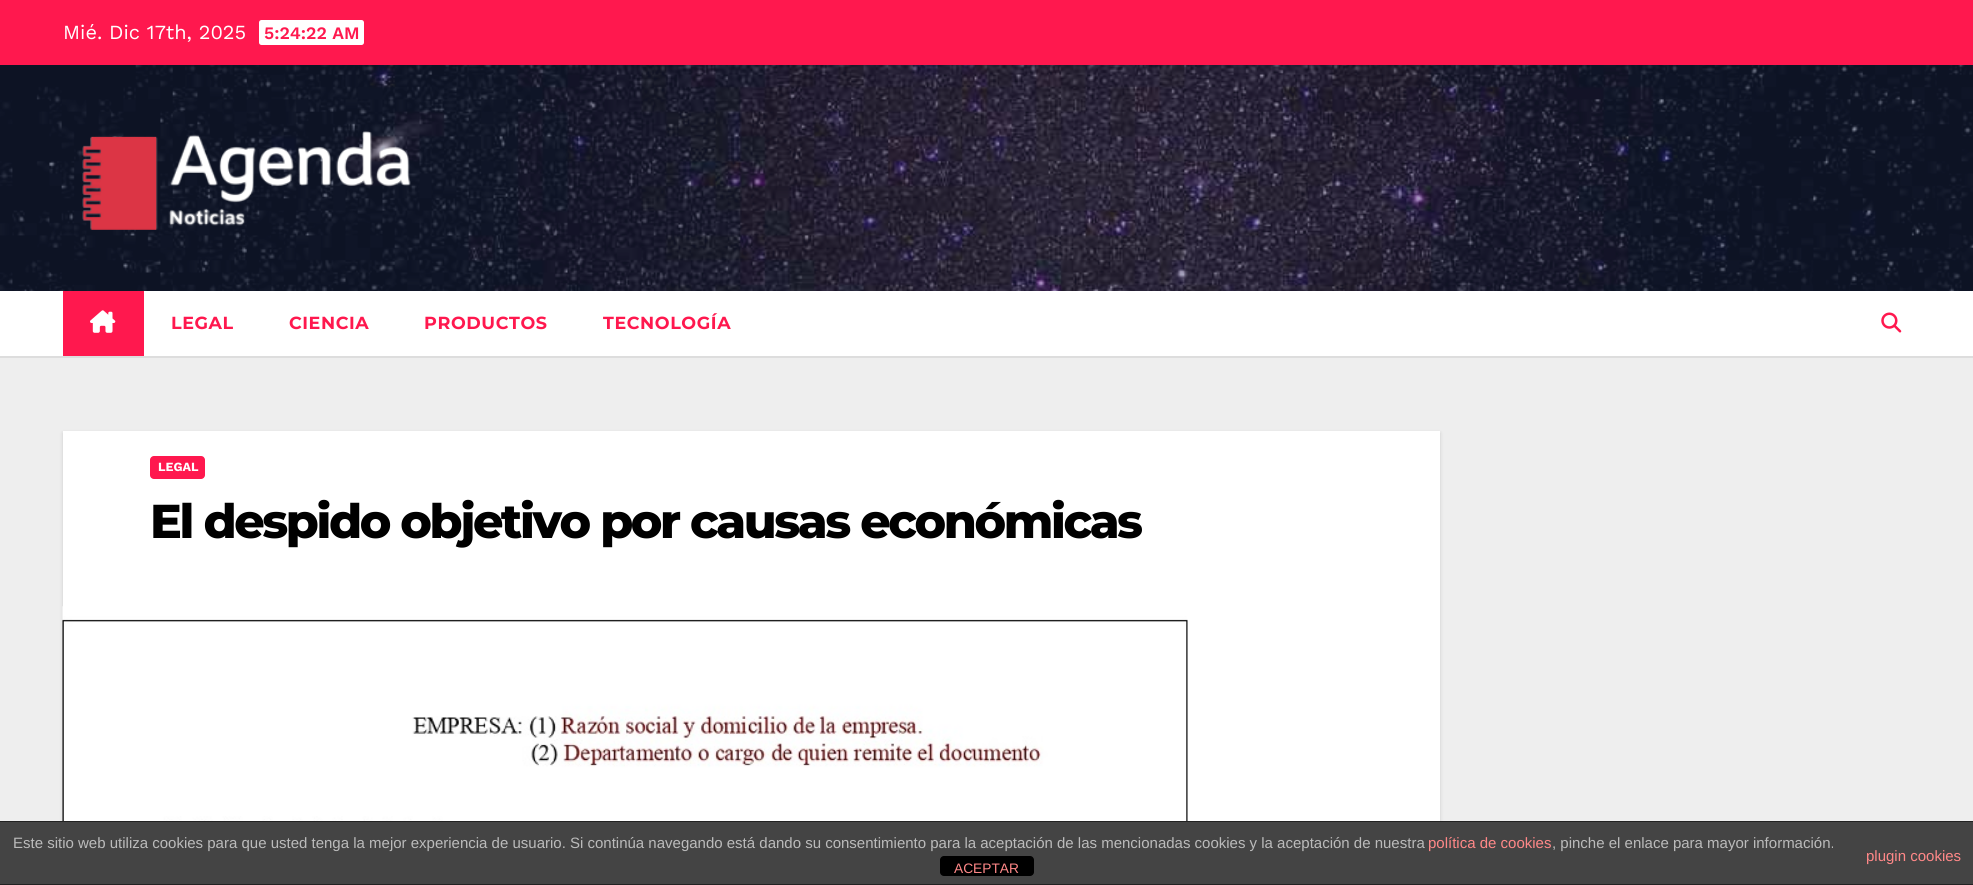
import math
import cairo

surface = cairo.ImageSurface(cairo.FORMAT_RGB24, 1973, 885)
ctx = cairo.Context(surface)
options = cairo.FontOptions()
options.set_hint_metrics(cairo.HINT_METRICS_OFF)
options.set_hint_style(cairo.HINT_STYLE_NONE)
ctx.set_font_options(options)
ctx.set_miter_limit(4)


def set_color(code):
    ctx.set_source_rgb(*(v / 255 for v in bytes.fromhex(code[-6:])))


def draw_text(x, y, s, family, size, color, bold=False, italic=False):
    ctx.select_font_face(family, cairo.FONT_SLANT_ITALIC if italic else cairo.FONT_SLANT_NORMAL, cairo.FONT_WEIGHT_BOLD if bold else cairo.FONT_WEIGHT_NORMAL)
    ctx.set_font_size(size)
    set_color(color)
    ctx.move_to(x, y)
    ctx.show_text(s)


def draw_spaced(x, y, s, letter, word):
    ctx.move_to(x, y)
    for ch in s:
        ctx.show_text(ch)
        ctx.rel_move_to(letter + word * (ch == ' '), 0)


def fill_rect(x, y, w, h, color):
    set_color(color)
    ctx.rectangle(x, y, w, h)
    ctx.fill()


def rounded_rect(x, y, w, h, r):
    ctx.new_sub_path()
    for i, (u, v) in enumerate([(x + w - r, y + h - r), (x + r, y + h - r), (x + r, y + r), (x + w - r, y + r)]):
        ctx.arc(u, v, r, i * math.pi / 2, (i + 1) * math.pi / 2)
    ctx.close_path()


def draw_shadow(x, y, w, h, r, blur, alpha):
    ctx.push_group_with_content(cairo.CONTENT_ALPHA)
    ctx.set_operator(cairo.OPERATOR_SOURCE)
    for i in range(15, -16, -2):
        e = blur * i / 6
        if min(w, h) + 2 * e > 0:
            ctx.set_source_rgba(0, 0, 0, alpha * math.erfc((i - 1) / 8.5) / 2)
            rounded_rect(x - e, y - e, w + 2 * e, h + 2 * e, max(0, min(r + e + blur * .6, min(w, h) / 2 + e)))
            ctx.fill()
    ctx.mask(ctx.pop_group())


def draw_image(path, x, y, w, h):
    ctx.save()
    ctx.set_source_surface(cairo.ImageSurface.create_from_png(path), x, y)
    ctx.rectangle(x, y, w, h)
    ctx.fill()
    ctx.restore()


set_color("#eeeeee")
ctx.paint()
fill_rect(0, 0, 1973, 65, "#ff184e")
draw_text(63, 39, "Mié. Dic 17th, 2025", "Work Sans", 20, "#ffffff")
rounded_rect(259, 20, 105, 25, 2.5)
ctx.fill()
draw_text(264, 39, "5:24:22 AM", "Work Sans SemiBold", 17.5, "#ff184e")
draw_image("assets/img1.png", 0, 65, 1973, 226)
draw_image("assets/img2.png", 82, 131, 329, 99)
set_color("#dddddd")
ctx.new_path()
ctx.move_to(0, 356)
ctx.line_to(0, 358)
ctx.line_to(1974, 358)
ctx.line_to(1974, 293)
ctx.line_to(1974, 356)
ctx.close_path()
ctx.fill()
fill_rect(0, 291, 1973, 65, "#ffffff")
fill_rect(63, 291, 81, 65, "#ff184e")
draw_image("assets/img3.png", 90, 310, 26, 23)
ctx.select_font_face("Montserrat", cairo.FONT_SLANT_NORMAL, cairo.FONT_WEIGHT_BOLD)
draw_spaced(171, 329, "LEGAL", 0.6, 0)
draw_spaced(289, 329, "CIENCIA", 0.6, 0)
draw_spaced(424, 329, "PRODUCTOS", 0.6, 0)
draw_spaced(603, 329, "TECNOLOGÍA", 0.6, 0)
draw_image("assets/img4.png", 1881, 312, 21, 21)
set_color("#000000")
draw_shadow(63, 433, 1377, 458, 0, 2, 0.15)
fill_rect(63, 431, 1377, 390, "#ffffff")
set_color("#ff184e")
rounded_rect(150, 456, 55, 23, 4)
ctx.fill()
draw_text(158, 471, "LEGAL", "Work Sans", 12.5, "#ffffff", bold=True)
ctx.select_font_face("Montserrat ExtraBold")
ctx.set_font_size(47.5)
set_color("#000000")
draw_spaced(150, 538, "El despido objetivo por causas económicas", -2.4, 0)
draw_image("assets/img5.png", 62, 606, 1126, 215)
fill_rect(0, 822, 1973, 62, "#444444")
fill_rect(0, 821, 1973, 1, "#222222")
fill_rect(0, 884, 1973, 1, "#222222")
draw_text(13, 848, "Este sitio web utiliza cookies para que usted tenga la mejor experiencia de usuario. Si continúa navegando está dando su consentimiento para la aceptación de las mencionadas cookies y la aceptación de nuestra", "Liberation Sans", 15, "#bbbbbb")
draw_text(1428, 848, "política de cookies", "Liberation Sans", 15, "#ff8888")
draw_text(1552, 848, ", pinche el enlace para mayor información.", "Liberation Sans", 15, "#bbbbbb")
draw_text(1866, 861, "plugin cookies", "Liberation Sans", 15, "#ff8888")
set_color("#000000")
rounded_rect(940, 856, 94, 20, 4)
ctx.fill()
draw_text(954, 873, "ACEPTAR", "Liberation Sans", 13.75, "#ff8888")
surface.write_to_png("output.png")
